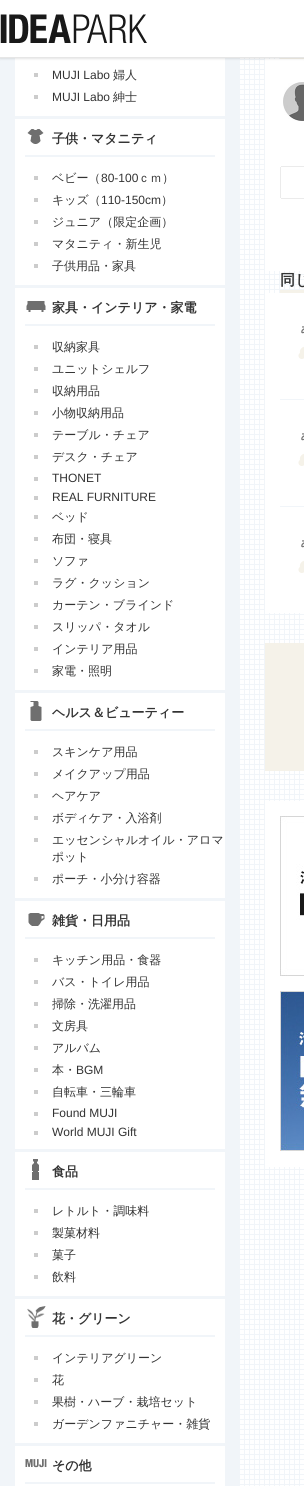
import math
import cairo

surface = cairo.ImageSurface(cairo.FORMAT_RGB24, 304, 1486)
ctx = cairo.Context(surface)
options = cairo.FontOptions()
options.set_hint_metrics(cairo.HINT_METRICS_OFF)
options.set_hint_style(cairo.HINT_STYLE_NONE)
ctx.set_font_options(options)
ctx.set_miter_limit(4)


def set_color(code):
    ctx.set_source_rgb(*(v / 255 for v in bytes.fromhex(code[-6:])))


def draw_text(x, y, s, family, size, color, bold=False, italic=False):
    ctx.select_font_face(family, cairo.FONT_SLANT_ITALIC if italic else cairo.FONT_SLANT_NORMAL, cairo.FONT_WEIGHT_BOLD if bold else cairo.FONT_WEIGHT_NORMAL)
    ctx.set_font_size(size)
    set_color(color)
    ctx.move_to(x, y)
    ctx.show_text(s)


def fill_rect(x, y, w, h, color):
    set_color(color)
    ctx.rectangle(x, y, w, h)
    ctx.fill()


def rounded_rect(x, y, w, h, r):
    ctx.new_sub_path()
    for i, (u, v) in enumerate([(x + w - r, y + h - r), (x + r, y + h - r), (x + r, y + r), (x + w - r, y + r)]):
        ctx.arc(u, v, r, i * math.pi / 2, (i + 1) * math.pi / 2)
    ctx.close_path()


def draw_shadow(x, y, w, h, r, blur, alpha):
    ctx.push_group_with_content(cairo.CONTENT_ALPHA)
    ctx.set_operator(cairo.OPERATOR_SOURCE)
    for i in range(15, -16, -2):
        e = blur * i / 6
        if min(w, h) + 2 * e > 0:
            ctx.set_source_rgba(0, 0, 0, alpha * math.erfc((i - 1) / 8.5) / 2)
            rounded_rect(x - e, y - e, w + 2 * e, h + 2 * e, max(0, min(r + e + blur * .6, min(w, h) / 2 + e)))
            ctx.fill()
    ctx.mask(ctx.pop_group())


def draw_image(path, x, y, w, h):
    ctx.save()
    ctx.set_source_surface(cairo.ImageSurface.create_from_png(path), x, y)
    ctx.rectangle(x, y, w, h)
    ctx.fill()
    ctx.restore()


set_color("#ffffff")
ctx.paint()
draw_image("assets/img1.png", 240, 58, 64, 1428)
fill_rect(0, 58, 240, 1428, "#f1f5f9")
fill_rect(15, 58, 210, 58, "#ffffff")
fill_rect(280, 58, 24, 1, "#f5f2e9")
fill_rect(265, 59, 39, 212, "#ffffff")
set_color("#000000")
draw_shadow(0, 1, 304, 58, 0, 1, 0.1)
fill_rect(0, 0, 304, 57, "#ffffff")
fill_rect(0, 57, 304, 1, "#e6e6e6")
draw_image("assets/img2.png", 0, 14, 147, 29)
fill_rect(34, 73, 4, 4, "#cccccc")
draw_text(52, 79, "MUJI Labo", "Liberation Sans", 12, "#333333")
draw_text(113, 79, "婦人", "WenQuanYi Zen Hei Medium", 12, "#333333")
fill_rect(34, 95, 4, 4, "#cccccc")
draw_text(52, 101, "MUJI Labo", "Liberation Sans", 12, "#333333")
draw_text(113, 101, "紳士", "WenQuanYi Zen Hei Medium", 12, "#333333")
fill_rect(15, 119, 210, 166, "#ffffff")
fill_rect(25, 155, 190, 2, "#f1f5f9")
draw_image("assets/img3.png", 27, 129, 17, 15)
draw_text(52, 143, "子供・マタニティ", "WenQuanYi Zen Hei", 13, "#333333", bold=True)
fill_rect(34, 176, 4, 4, "#cccccc")
draw_text(52, 182, "ベビー（", "WenQuanYi Zen Hei Medium", 12, "#333333")
draw_text(101, 182, "80-100", "Liberation Sans", 12, "#333333")
draw_text(138, 182, "ｃｍ）", "WenQuanYi Zen Hei Medium", 12, "#333333")
fill_rect(34, 198, 4, 4, "#cccccc")
draw_text(52, 204, "キッズ（", "WenQuanYi Zen Hei Medium", 12, "#333333")
draw_text(101, 204, "110-150cm", "Liberation Sans", 12, "#333333")
draw_text(161, 204, "）", "WenQuanYi Zen Hei Medium", 12, "#333333")
fill_rect(34, 220, 4, 4, "#cccccc")
draw_text(52, 226, "ジュニア（限定企画）", "WenQuanYi Zen Hei Medium", 12, "#333333")
fill_rect(34, 242, 4, 4, "#cccccc")
draw_text(52, 248, "マタニティ・新生児", "WenQuanYi Zen Hei Medium", 12, "#333333")
fill_rect(34, 264, 4, 4, "#cccccc")
draw_text(52, 270, "子供用品・家具", "WenQuanYi Zen Hei Medium", 12, "#333333")
fill_rect(15, 288, 210, 402, "#ffffff")
fill_rect(25, 324, 190, 2, "#f1f5f9")
draw_image("assets/img4.png", 26, 301, 20, 11)
draw_text(52, 312, "家具・インテリア・家電", "WenQuanYi Zen Hei", 13, "#333333", bold=True)
fill_rect(34, 345, 4, 4, "#cccccc")
draw_text(52, 351, "収納家具", "WenQuanYi Zen Hei Medium", 12, "#333333")
fill_rect(34, 367, 4, 4, "#cccccc")
draw_text(52, 373, "ユニットシェルフ", "WenQuanYi Zen Hei Medium", 12, "#333333")
fill_rect(34, 389, 4, 4, "#cccccc")
draw_text(52, 395, "収納用品", "WenQuanYi Zen Hei Medium", 12, "#333333")
fill_rect(34, 411, 4, 4, "#cccccc")
draw_text(52, 417, "小物収納用品", "WenQuanYi Zen Hei Medium", 12, "#333333")
fill_rect(34, 433, 4, 4, "#cccccc")
draw_text(52, 439, "テーブル・チェア", "WenQuanYi Zen Hei Medium", 12, "#333333")
fill_rect(34, 455, 4, 4, "#cccccc")
draw_text(52, 461, "デスク・チェア", "WenQuanYi Zen Hei Medium", 12, "#333333")
fill_rect(34, 477, 4, 4, "#cccccc")
draw_text(52, 482, "THONET", "Liberation Sans", 12, "#333333")
fill_rect(34, 496, 4, 4, "#cccccc")
draw_text(52, 501, "REAL FURNITURE", "Liberation Sans", 12, "#333333")
fill_rect(34, 515, 4, 4, "#cccccc")
draw_text(52, 521, "ベッド", "WenQuanYi Zen Hei Medium", 12, "#333333")
fill_rect(34, 537, 4, 4, "#cccccc")
draw_text(52, 543, "布団・寝具", "WenQuanYi Zen Hei Medium", 12, "#333333")
fill_rect(34, 559, 4, 4, "#cccccc")
draw_text(52, 565, "ソファ", "WenQuanYi Zen Hei Medium", 12, "#333333")
fill_rect(34, 581, 4, 4, "#cccccc")
draw_text(52, 587, "ラグ・クッション", "WenQuanYi Zen Hei Medium", 12, "#333333")
fill_rect(34, 603, 4, 4, "#cccccc")
draw_text(52, 609, "カーテン・ブラインド", "WenQuanYi Zen Hei Medium", 12, "#333333")
fill_rect(34, 625, 4, 4, "#cccccc")
draw_text(52, 631, "スリッパ・タオル", "WenQuanYi Zen Hei Medium", 12, "#333333")
fill_rect(34, 647, 4, 4, "#cccccc")
draw_text(52, 653, "インテリア用品", "WenQuanYi Zen Hei Medium", 12, "#333333")
fill_rect(34, 669, 4, 4, "#cccccc")
draw_text(52, 675, "家電・照明", "WenQuanYi Zen Hei Medium", 12, "#333333")
fill_rect(15, 693, 210, 205, "#ffffff")
fill_rect(25, 729, 190, 2, "#f1f5f9")
draw_image("assets/img5.png", 30, 701, 12, 20)
draw_text(52, 717, "ヘルス＆ビューティー", "WenQuanYi Zen Hei", 13, "#333333", bold=True)
fill_rect(34, 750, 4, 4, "#cccccc")
draw_text(52, 756, "スキンケア用品", "WenQuanYi Zen Hei Medium", 12, "#333333")
fill_rect(34, 772, 4, 4, "#cccccc")
draw_text(52, 778, "メイクアップ用品", "WenQuanYi Zen Hei Medium", 12, "#333333")
fill_rect(34, 794, 4, 4, "#cccccc")
draw_text(52, 800, "ヘアケア", "WenQuanYi Zen Hei Medium", 12, "#333333")
fill_rect(34, 816, 4, 4, "#cccccc")
draw_text(52, 822, "ボディケア・入浴剤", "WenQuanYi Zen Hei Medium", 12, "#333333")
fill_rect(34, 838, 4, 4, "#cccccc")
draw_text(52, 844, "エッセンシャルオイル・アロマ", "WenQuanYi Zen Hei Medium", 12, "#333333")
draw_text(52, 861, "ポット", "WenQuanYi Zen Hei Medium", 12, "#333333")
fill_rect(34, 877, 4, 4, "#cccccc")
draw_text(52, 883, "ポーチ・小分け容器", "WenQuanYi Zen Hei Medium", 12, "#333333")
fill_rect(15, 901, 210, 248, "#ffffff")
fill_rect(25, 937, 190, 2, "#f1f5f9")
draw_image("assets/img6.png", 28, 913, 17, 13)
draw_text(52, 925, "雑貨・日用品", "WenQuanYi Zen Hei", 13, "#333333", bold=True)
fill_rect(34, 958, 4, 4, "#cccccc")
draw_text(52, 964, "キッチン用品・食器", "WenQuanYi Zen Hei Medium", 12, "#333333")
fill_rect(34, 980, 4, 4, "#cccccc")
draw_text(52, 986, "バス・トイレ用品", "WenQuanYi Zen Hei Medium", 12, "#333333")
fill_rect(34, 1002, 4, 4, "#cccccc")
draw_text(52, 1008, "掃除・洗濯用品", "WenQuanYi Zen Hei Medium", 12, "#333333")
fill_rect(34, 1024, 4, 4, "#cccccc")
draw_text(52, 1030, "文房具", "WenQuanYi Zen Hei Medium", 12, "#333333")
fill_rect(34, 1046, 4, 4, "#cccccc")
draw_text(52, 1052, "アルバム", "WenQuanYi Zen Hei Medium", 12, "#333333")
fill_rect(34, 1068, 4, 4, "#cccccc")
draw_text(52, 1074, "本・", "WenQuanYi Zen Hei Medium", 12, "#333333")
draw_text(76, 1074, "BGM", "Liberation Sans", 12, "#333333")
fill_rect(34, 1090, 4, 4, "#cccccc")
draw_text(52, 1096, "自転車・三輪車", "WenQuanYi Zen Hei Medium", 12, "#333333")
fill_rect(34, 1112, 4, 4, "#cccccc")
draw_text(52, 1117, "Found MUJI", "Liberation Sans", 12, "#333333")
fill_rect(34, 1131, 4, 4, "#cccccc")
draw_text(52, 1136, "World MUJI Gift", "Liberation Sans", 12, "#333333")
fill_rect(15, 1152, 210, 144, "#ffffff")
fill_rect(25, 1188, 190, 2, "#f1f5f9")
draw_image("assets/img7.png", 32, 1159, 7, 21)
draw_text(52, 1176, "食品", "WenQuanYi Zen Hei", 13, "#333333", bold=True)
fill_rect(34, 1209, 4, 4, "#cccccc")
draw_text(52, 1215, "レトルト・調味料", "WenQuanYi Zen Hei Medium", 12, "#333333")
fill_rect(34, 1231, 4, 4, "#cccccc")
draw_text(52, 1237, "製菓材料", "WenQuanYi Zen Hei Medium", 12, "#333333")
fill_rect(34, 1253, 4, 4, "#cccccc")
draw_text(52, 1259, "菓子", "WenQuanYi Zen Hei Medium", 12, "#333333")
fill_rect(34, 1275, 4, 4, "#cccccc")
draw_text(52, 1281, "飲料", "WenQuanYi Zen Hei Medium", 12, "#333333")
fill_rect(15, 1299, 210, 144, "#ffffff")
fill_rect(25, 1335, 190, 2, "#f1f5f9")
draw_image("assets/img8.png", 27, 1306, 19, 22)
draw_text(52, 1323, "花・グリーン", "WenQuanYi Zen Hei", 13, "#333333", bold=True)
fill_rect(34, 1356, 4, 4, "#cccccc")
draw_text(52, 1362, "インテリアグリーン", "WenQuanYi Zen Hei Medium", 12, "#333333")
fill_rect(34, 1378, 4, 4, "#cccccc")
draw_text(52, 1384, "花", "WenQuanYi Zen Hei Medium", 12, "#333333")
fill_rect(34, 1400, 4, 4, "#cccccc")
draw_text(52, 1406, "果樹・ハーブ・栽培セット", "WenQuanYi Zen Hei Medium", 12, "#333333")
fill_rect(34, 1422, 4, 4, "#cccccc")
draw_text(52, 1428, "ガーデンファニチャー・雑貨", "WenQuanYi Zen Hei Medium", 12, "#333333")
fill_rect(15, 1446, 210, 40, "#ffffff")
fill_rect(25, 1482, 190, 2, "#f1f5f9")
draw_image("assets/img9.png", 25, 1459, 22, 9)
draw_text(52, 1470, "その他", "WenQuanYi Zen Hei", 13, "#333333", bold=True)
draw_image("assets/img10.png", 283, 82, 21, 39)
fill_rect(281, 166, 23, 1, "#ebebeb")
fill_rect(281, 198, 23, 1, "#ebebeb")
fill_rect(280, 167, 1, 31, "#ebebeb")
fill_rect(280, 290, 24, 3, "#f5f2e9")
draw_text(280, 285, "同じ", "WenQuanYi Zen Hei", 15, "#333333", bold=True)
fill_rect(265, 293, 39, 320, "#ffffff")
fill_rect(280, 399, 24, 1, "#f1f5f9")
draw_image("assets/img11.png", 298, 326, 6, 33)
fill_rect(280, 506, 24, 1, "#f1f5f9")
draw_image("assets/img11.png", 298, 433, 6, 33)
draw_image("assets/img11.png", 298, 540, 6, 33)
fill_rect(265, 643, 39, 128, "#f5f2e9")
fill_rect(265, 801, 39, 366, "#ffffff")
draw_image("assets/img12.png", 280, 816, 24, 160)
draw_image("assets/img13.png", 280, 991, 24, 160)
surface.write_to_png("output.png")
